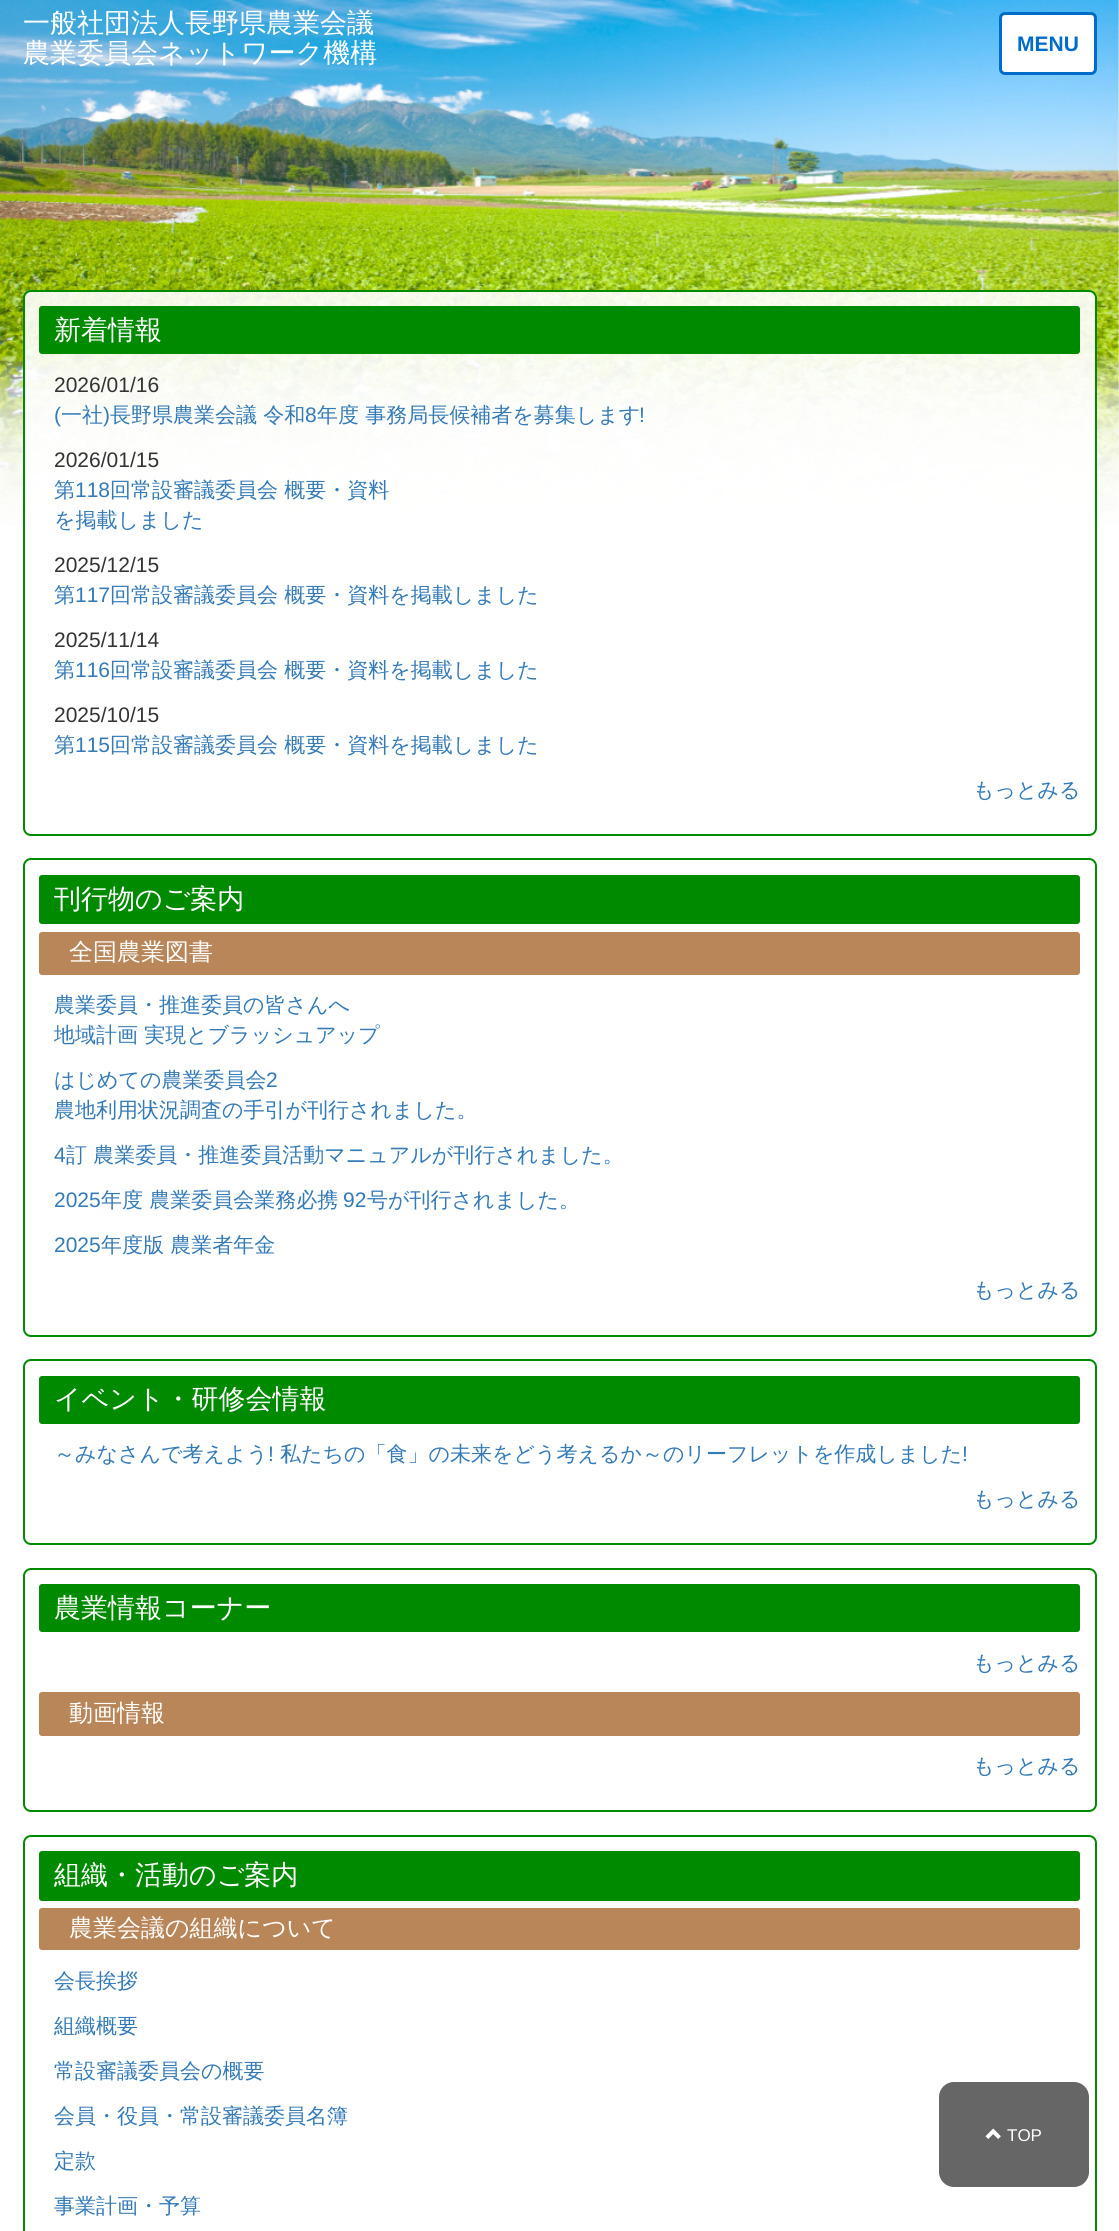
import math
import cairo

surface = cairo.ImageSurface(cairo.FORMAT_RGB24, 1119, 2231)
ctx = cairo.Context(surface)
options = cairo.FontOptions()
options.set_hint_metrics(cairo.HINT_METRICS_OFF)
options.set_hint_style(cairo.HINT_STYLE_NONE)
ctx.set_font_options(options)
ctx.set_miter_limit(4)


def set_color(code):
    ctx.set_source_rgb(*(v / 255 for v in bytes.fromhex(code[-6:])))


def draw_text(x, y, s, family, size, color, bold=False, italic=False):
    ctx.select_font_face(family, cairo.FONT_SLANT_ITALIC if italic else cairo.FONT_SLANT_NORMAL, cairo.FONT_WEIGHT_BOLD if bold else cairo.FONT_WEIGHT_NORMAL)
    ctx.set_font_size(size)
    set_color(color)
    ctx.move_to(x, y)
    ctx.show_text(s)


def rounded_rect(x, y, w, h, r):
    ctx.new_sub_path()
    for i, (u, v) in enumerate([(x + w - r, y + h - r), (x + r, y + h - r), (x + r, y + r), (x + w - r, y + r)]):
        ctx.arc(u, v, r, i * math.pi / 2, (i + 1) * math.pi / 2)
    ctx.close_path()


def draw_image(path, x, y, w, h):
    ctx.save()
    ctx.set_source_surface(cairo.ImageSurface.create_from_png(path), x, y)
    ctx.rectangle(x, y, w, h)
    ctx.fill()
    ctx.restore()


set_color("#ffffff")
ctx.paint()
draw_image("assets/img1.png", 0, 0, 1119, 525)
draw_text(23, 32, "一般社団法人長野県農業会議", "WenQuanYi Zen Hei Medium", 27, "#ffffff")
draw_text(23, 62, "農業委員会ネットワーク機構", "WenQuanYi Zen Hei Medium", 27, "#ffffff")
rounded_rect(1000.5, 13.5, 95, 60, 4.5)
ctx.fill_preserve()
set_color("#006cc9")
ctx.set_line_width(3)
ctx.stroke()
draw_text(1017, 51, "MENU", "Liberation Sans", 21, "#006cc9", bold=True)
ctx.set_source_rgba(1, 1, 1, 0.9)
rounded_rect(24, 291, 1072, 544, 7)
ctx.fill_preserve()
set_color("#008a00")
ctx.set_line_width(2)
ctx.stroke()
rounded_rect(39, 306, 1041, 48, 3)
ctx.fill()
draw_text(54, 339, "新着情報", "WenQuanYi Zen Hei Medium", 27, "#ffffff")
draw_text(54, 392, "2026/01/16", "Liberation Sans", 21, "#333333")
draw_text(54, 422, "(", "Liberation Sans", 21, "#337ab7")
draw_text(61, 422, "一社", "WenQuanYi Zen Hei Medium", 21, "#337ab7")
draw_text(103, 422, ")", "Liberation Sans", 21, "#337ab7")
draw_text(110, 422, "長野県農業会議 令和", "WenQuanYi Zen Hei Medium", 21, "#337ab7")
draw_text(305, 422, "8", "Liberation Sans", 21, "#337ab7")
draw_text(317, 422, "年度 事務局長候補者を募集します", "WenQuanYi Zen Hei Medium", 21, "#337ab7")
draw_text(639, 422, "!", "Liberation Sans", 21, "#337ab7")
draw_text(54, 467, "2026/01/15", "Liberation Sans", 21, "#333333")
draw_text(54, 497, "第", "WenQuanYi Zen Hei Medium", 21, "#337ab7")
draw_text(75, 497, "118", "Liberation Sans", 21, "#337ab7")
draw_text(110, 497, "回常設審議委員会 概要・資料", "WenQuanYi Zen Hei Medium", 21, "#337ab7")
draw_text(54, 527, "を掲載しました", "WenQuanYi Zen Hei Medium", 21, "#337ab7")
draw_text(54, 572, "2025/12/15", "Liberation Sans", 21, "#333333")
draw_text(54, 602, "第", "WenQuanYi Zen Hei Medium", 21, "#337ab7")
draw_text(75, 602, "117", "Liberation Sans", 21, "#337ab7")
draw_text(110, 602, "回常設審議委員会 概要・資料を掲載しました", "WenQuanYi Zen Hei Medium", 21, "#337ab7")
draw_text(54, 647, "2025/11/14", "Liberation Sans", 21, "#333333")
draw_text(54, 677, "第", "WenQuanYi Zen Hei Medium", 21, "#337ab7")
draw_text(75, 677, "116", "Liberation Sans", 21, "#337ab7")
draw_text(110, 677, "回常設審議委員会 概要・資料を掲載しました", "WenQuanYi Zen Hei Medium", 21, "#337ab7")
draw_text(54, 722, "2025/10/15", "Liberation Sans", 21, "#333333")
draw_text(54, 752, "第", "WenQuanYi Zen Hei Medium", 21, "#337ab7")
draw_text(75, 752, "115", "Liberation Sans", 21, "#337ab7")
draw_text(110, 752, "回常設審議委員会 概要・資料を掲載しました", "WenQuanYi Zen Hei Medium", 21, "#337ab7")
draw_text(973, 797, "もっとみる", "WenQuanYi Zen Hei Medium", 21, "#337ab7")
rounded_rect(24, 859, 1072, 477, 7)
set_color("#008a00")
ctx.stroke()
rounded_rect(39, 875, 1041, 49, 3)
ctx.fill()
draw_text(54, 908, "刊行物のご案内", "WenQuanYi Zen Hei Medium", 27, "#ffffff")
set_color("#b98659")
rounded_rect(39, 932, 1041, 43, 3)
ctx.fill()
draw_text(69, 960, "全国農業図書", "WenQuanYi Zen Hei Medium", 24, "#ffffff")
draw_text(54, 1012, "農業委員・推進委員の皆さんへ", "WenQuanYi Zen Hei Medium", 21, "#337ab7")
draw_text(54, 1042, "地域計画 実現とブラッシュアップ", "WenQuanYi Zen Hei Medium", 21, "#337ab7")
draw_text(54, 1087, "はじめての農業委員会", "WenQuanYi Zen Hei Medium", 21, "#337ab7")
draw_text(266, 1087, "2", "Liberation Sans", 21, "#337ab7")
draw_text(54, 1117, "農地利用状況調査の手引が刊行されました。", "WenQuanYi Zen Hei Medium", 21, "#337ab7")
draw_text(54, 1162, "4", "Liberation Sans", 21, "#337ab7")
draw_text(66, 1162, "訂 農業委員・推進委員活動マニュアルが刊行されました。", "WenQuanYi Zen Hei Medium", 21, "#337ab7")
draw_text(54, 1207, "2025", "Liberation Sans", 21, "#337ab7")
draw_text(101, 1207, "年度 農業委員会業務必携", "WenQuanYi Zen Hei Medium", 21, "#337ab7")
draw_text(343, 1207, "92", "Liberation Sans", 21, "#337ab7")
draw_text(367, 1207, "号が刊行されました。", "WenQuanYi Zen Hei Medium", 21, "#337ab7")
draw_text(54, 1252, "2025", "Liberation Sans", 21, "#337ab7")
draw_text(101, 1252, "年度版 農業者年金", "WenQuanYi Zen Hei Medium", 21, "#337ab7")
draw_text(973, 1297, "もっとみる", "WenQuanYi Zen Hei Medium", 21, "#337ab7")
rounded_rect(24, 1360, 1072, 184, 7)
set_color("#008a00")
ctx.stroke()
rounded_rect(39, 1376, 1041, 48, 3)
ctx.fill()
draw_text(54, 1408, "イベント・研修会情報", "WenQuanYi Zen Hei Medium", 27, "#ffffff")
draw_text(54, 1461, "～みなさんで考えよう", "WenQuanYi Zen Hei Medium", 21, "#337ab7")
draw_text(268, 1461, "!", "Liberation Sans", 21, "#337ab7")
draw_text(280, 1461, "私たちの「食」の未来をどう考えるか～のリーフレットを作成しました", "WenQuanYi Zen Hei Medium", 21, "#337ab7")
draw_text(962, 1461, "!", "Liberation Sans", 21, "#337ab7")
draw_text(973, 1506, "もっとみる", "WenQuanYi Zen Hei Medium", 21, "#337ab7")
rounded_rect(24, 1569, 1072, 242, 7)
set_color("#008a00")
ctx.stroke()
rounded_rect(39, 1584, 1041, 48, 3)
ctx.fill()
draw_text(54, 1617, "農業情報コーナー", "WenQuanYi Zen Hei Medium", 27, "#ffffff")
draw_text(973, 1670, "もっとみる", "WenQuanYi Zen Hei Medium", 21, "#337ab7")
set_color("#b98659")
rounded_rect(39, 1692, 1041, 44, 3)
ctx.fill()
draw_text(69, 1721, "動画情報", "WenQuanYi Zen Hei Medium", 24, "#ffffff")
draw_text(973, 1773, "もっとみる", "WenQuanYi Zen Hei Medium", 21, "#337ab7")
rounded_rect(24, 1836, 1072, 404, 7)
set_color("#008a00")
ctx.stroke()
rounded_rect(39, 1851, 1041, 50, 3)
ctx.fill()
draw_text(54, 1884, "組織・活動のご案内", "WenQuanYi Zen Hei Medium", 27, "#ffffff")
set_color("#b98659")
rounded_rect(39, 1908, 1041, 42, 3)
ctx.fill()
draw_text(69, 1936, "農業会議の組織について", "WenQuanYi Zen Hei Medium", 24, "#ffffff")
draw_text(54, 1988, "会長挨拶", "WenQuanYi Zen Hei Medium", 21, "#337ab7")
draw_text(54, 2033, "組織概要", "WenQuanYi Zen Hei Medium", 21, "#337ab7")
draw_text(54, 2078, "常設審議委員会の概要", "WenQuanYi Zen Hei Medium", 21, "#337ab7")
draw_text(54, 2123, "会員・役員・常設審議委員名簿", "WenQuanYi Zen Hei Medium", 21, "#337ab7")
draw_text(54, 2168, "定款", "WenQuanYi Zen Hei Medium", 21, "#337ab7")
draw_text(54, 2213, "事業計画・予算", "WenQuanYi Zen Hei Medium", 21, "#337ab7")
set_color("#666666")
rounded_rect(939, 2082, 150, 105, 15)
ctx.fill()
draw_image("assets/img2.png", 985, 2128, 16, 11)
draw_text(1007, 2141, "TOP", "Liberation Sans", 17, "#ffffff")
surface.write_to_png("output.png")
